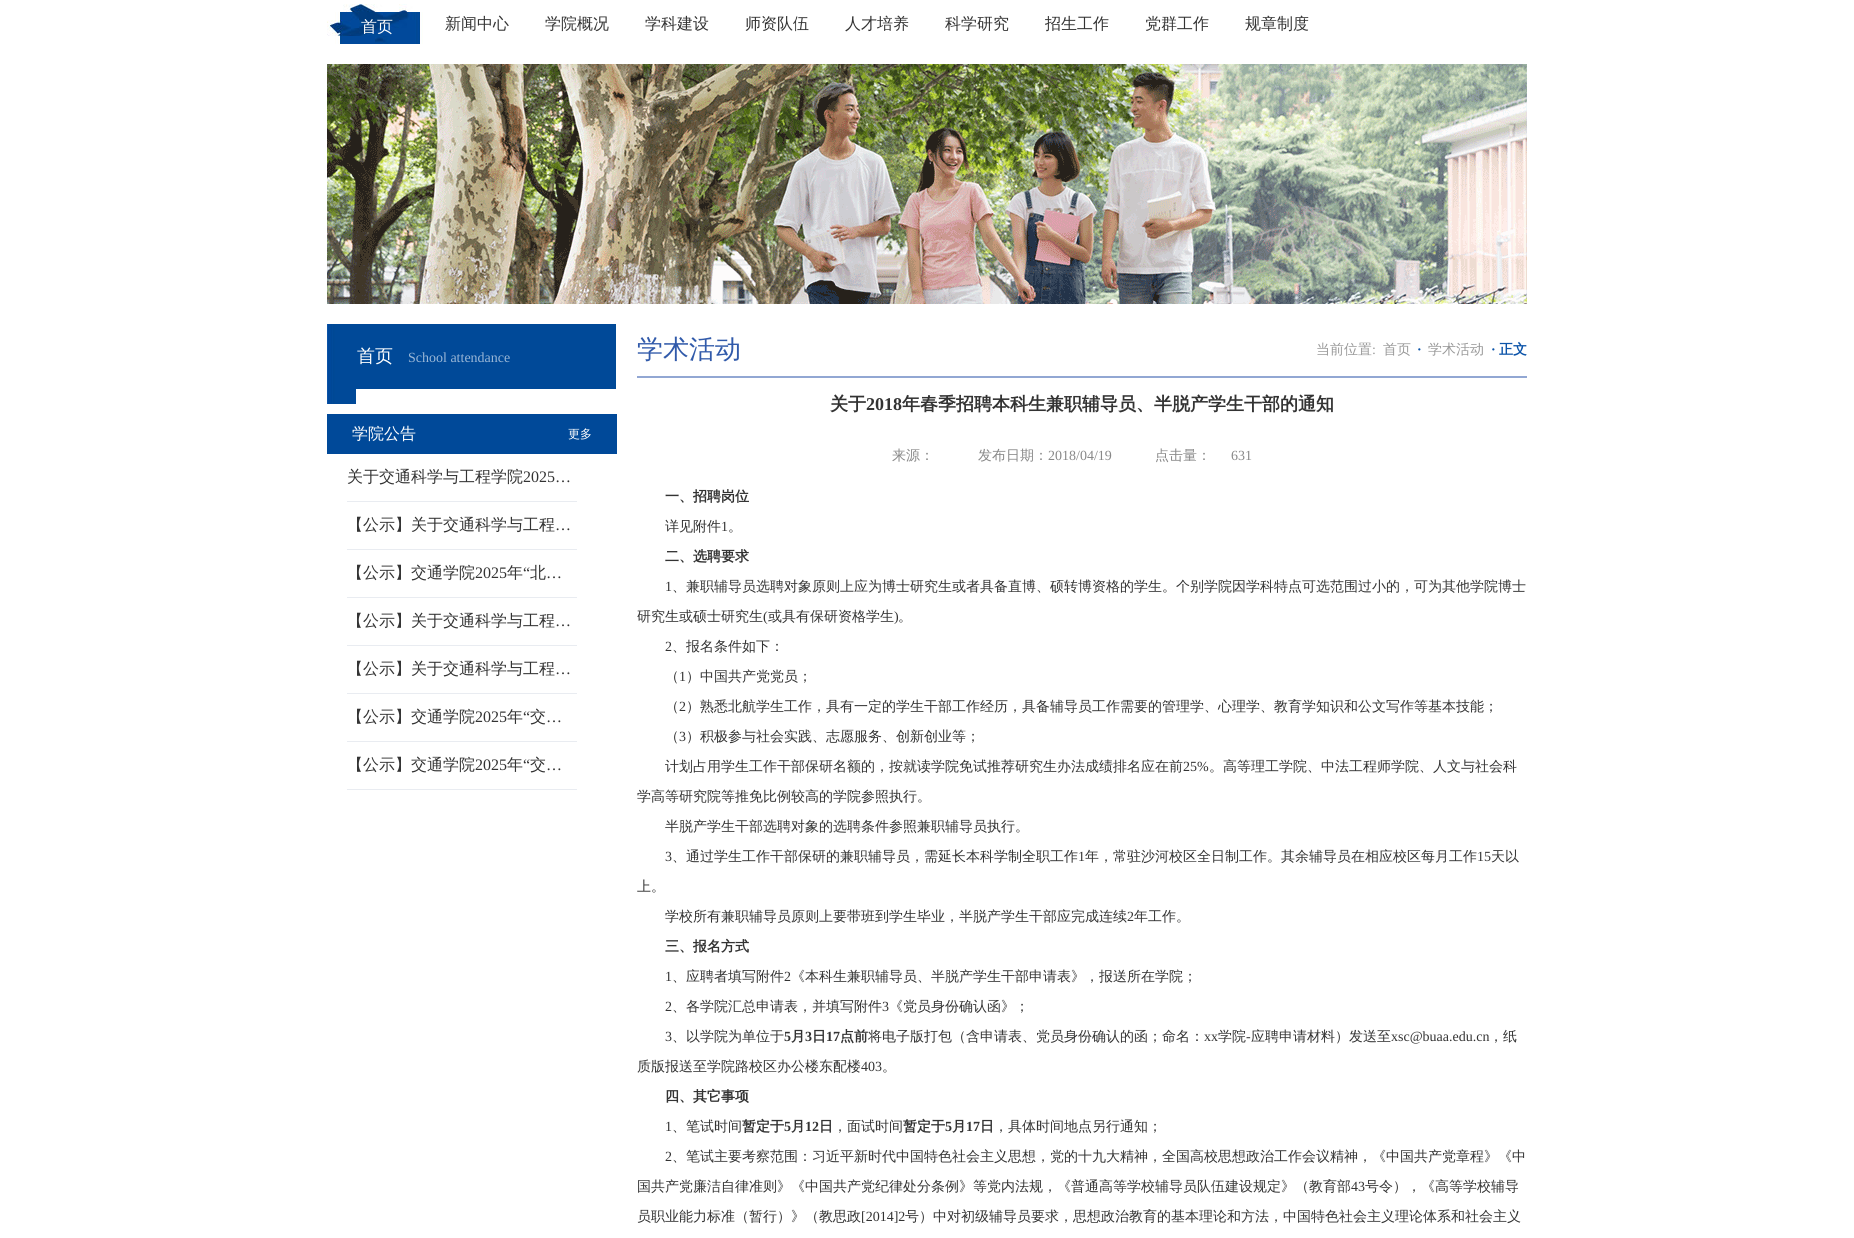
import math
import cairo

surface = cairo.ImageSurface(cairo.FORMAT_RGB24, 1854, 1238)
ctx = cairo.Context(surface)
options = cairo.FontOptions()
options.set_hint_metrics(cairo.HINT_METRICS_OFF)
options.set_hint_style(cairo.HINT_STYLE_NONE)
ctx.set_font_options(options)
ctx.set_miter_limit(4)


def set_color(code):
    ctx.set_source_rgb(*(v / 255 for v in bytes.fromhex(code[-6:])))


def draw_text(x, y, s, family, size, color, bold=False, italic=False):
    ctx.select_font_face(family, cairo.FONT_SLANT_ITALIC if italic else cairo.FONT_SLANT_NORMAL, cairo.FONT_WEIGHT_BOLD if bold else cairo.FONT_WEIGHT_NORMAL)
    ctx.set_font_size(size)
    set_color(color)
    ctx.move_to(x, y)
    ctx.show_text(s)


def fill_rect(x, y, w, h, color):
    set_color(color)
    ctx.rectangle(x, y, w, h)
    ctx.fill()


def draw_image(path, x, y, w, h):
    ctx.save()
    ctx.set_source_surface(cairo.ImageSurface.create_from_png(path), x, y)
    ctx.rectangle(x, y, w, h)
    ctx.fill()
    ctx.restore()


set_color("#ffffff")
ctx.paint()
draw_image("assets/img1.png", 327, 4, 96, 40)
draw_text(361, 32, "首页", "WenQuanYi Zen Hei Medium", 16, "#ffffff")
draw_text(445, 29, "新闻中心", "WenQuanYi Zen Hei Medium", 16, "#333333")
draw_text(545, 29, "学院概况", "WenQuanYi Zen Hei Medium", 16, "#333333")
draw_text(645, 29, "学科建设", "WenQuanYi Zen Hei Medium", 16, "#333333")
draw_text(745, 29, "师资队伍", "WenQuanYi Zen Hei Medium", 16, "#333333")
draw_text(845, 29, "人才培养", "WenQuanYi Zen Hei Medium", 16, "#333333")
draw_text(945, 29, "科学研究", "WenQuanYi Zen Hei Medium", 16, "#333333")
draw_text(1045, 29, "招生工作", "WenQuanYi Zen Hei Medium", 16, "#333333")
draw_text(1145, 29, "党群工作", "WenQuanYi Zen Hei Medium", 16, "#333333")
draw_text(1245, 29, "规章制度", "WenQuanYi Zen Hei Medium", 16, "#333333")
draw_image("assets/img2.png", 327, 64, 1200, 240)
draw_image("assets/img3.png", 327, 324, 289, 80)
draw_text(357, 362, "首页", "WenQuanYi Zen Hei Medium", 18, "#ffffff")
draw_text(408, 362, "School attendance", "Liberation Serif", 14, "#99b6d6")
fill_rect(356, 389, 260, 15, "#ffffff")
fill_rect(327, 414, 290, 40, "#004999")
draw_text(352, 439, "学院公告", "WenQuanYi Zen Hei Medium", 16, "#ffffff")
draw_text(568, 438, "更多", "WenQuanYi Zen Hei Medium", 12, "#ffffff")
fill_rect(347, 501, 230, 1, "#e9ecf1")
draw_text(347, 482, "关于交通科学与工程学院", "WenQuanYi Zen Hei Medium", 16, "#333333")
draw_text(523, 482, "2025…", "Liberation Serif", 16, "#333333")
fill_rect(347, 549, 230, 1, "#e9ecf1")
draw_text(347, 530, "【公示】关于交通科学与工程", "WenQuanYi Zen Hei Medium", 16, "#333333")
draw_text(555, 530, "…", "Liberation Serif", 16, "#333333")
fill_rect(347, 597, 230, 1, "#e9ecf1")
draw_text(347, 578, "【公示】交通学院", "WenQuanYi Zen Hei Medium", 16, "#333333")
draw_text(475, 578, "2025", "Liberation Serif", 16, "#333333")
draw_text(507, 578, "年", "WenQuanYi Zen Hei Medium", 16, "#333333")
draw_text(523, 578, "“", "Liberation Serif", 16, "#333333")
draw_text(530, 578, "北", "WenQuanYi Zen Hei Medium", 16, "#333333")
draw_text(546, 578, "…", "Liberation Serif", 16, "#333333")
fill_rect(347, 645, 230, 1, "#e9ecf1")
draw_text(347, 626, "【公示】关于交通科学与工程", "WenQuanYi Zen Hei Medium", 16, "#333333")
draw_text(555, 626, "…", "Liberation Serif", 16, "#333333")
fill_rect(347, 693, 230, 1, "#e9ecf1")
draw_text(347, 674, "【公示】关于交通科学与工程", "WenQuanYi Zen Hei Medium", 16, "#333333")
draw_text(555, 674, "…", "Liberation Serif", 16, "#333333")
fill_rect(347, 741, 230, 1, "#e9ecf1")
draw_text(347, 722, "【公示】交通学院", "WenQuanYi Zen Hei Medium", 16, "#333333")
draw_text(475, 722, "2025", "Liberation Serif", 16, "#333333")
draw_text(507, 722, "年", "WenQuanYi Zen Hei Medium", 16, "#333333")
draw_text(523, 722, "“", "Liberation Serif", 16, "#333333")
draw_text(530, 722, "交", "WenQuanYi Zen Hei Medium", 16, "#333333")
draw_text(546, 722, "…", "Liberation Serif", 16, "#333333")
fill_rect(347, 789, 230, 1, "#e9ecf1")
draw_text(347, 770, "【公示】交通学院", "WenQuanYi Zen Hei Medium", 16, "#333333")
draw_text(475, 770, "2025", "Liberation Serif", 16, "#333333")
draw_text(507, 770, "年", "WenQuanYi Zen Hei Medium", 16, "#333333")
draw_text(523, 770, "“", "Liberation Serif", 16, "#333333")
draw_text(530, 770, "交", "WenQuanYi Zen Hei Medium", 16, "#333333")
draw_text(546, 770, "…", "Liberation Serif", 16, "#333333")
fill_rect(637, 376, 890, 2, "#92a7d3")
draw_text(637, 358, "学术活动", "WenQuanYi Zen Hei Medium", 26, "#315aaa")
draw_text(1316, 354, "当前位置", "WenQuanYi Zen Hei Medium", 14, "#999999")
draw_text(1372, 354, ":", "Liberation Serif", 14, "#999999")
draw_text(1383, 354, "首页", "WenQuanYi Zen Hei Medium", 14, "#999999")
draw_text(1417, 354, "·", "Liberation Serif", 14, "#0c54a9", bold=True)
draw_text(1428, 354, "学术活动", "WenQuanYi Zen Hei Medium", 14, "#999999")
draw_text(1491, 354, "·", "Liberation Serif", 14, "#0c54a9", bold=True)
draw_text(1499, 354, "正文", "WenQuanYi Zen Hei", 14, "#0c54a9", bold=True)
draw_text(830, 410, "关于", "WenQuanYi Zen Hei", 18, "#333333", bold=True)
draw_text(866, 410, "2018", "Liberation Serif", 18, "#333333", bold=True)
draw_text(902, 410, "年春季招聘本科生兼职辅导员、半脱产学生干部的通知", "WenQuanYi Zen Hei", 18, "#333333", bold=True)
draw_text(892, 460, "来源：", "WenQuanYi Zen Hei Medium", 14, "#888888")
draw_text(978, 460, "发布日期：", "WenQuanYi Zen Hei Medium", 14, "#888888")
draw_text(1048, 460, "2018/04/19", "Liberation Serif", 14, "#888888")
draw_text(1155, 460, "点击量：", "WenQuanYi Zen Hei Medium", 14, "#888888")
draw_text(1231, 460, "631", "Liberation Serif", 14, "#888888")
draw_text(665, 501, "一、招聘岗位", "WenQuanYi Zen Hei", 14, "#333333", bold=True)
draw_text(665, 531, "详见附件", "WenQuanYi Zen Hei Medium", 14, "#333333")
draw_text(721, 531, "1", "Liberation Serif", 14, "#333333")
draw_text(728, 531, "。", "WenQuanYi Zen Hei Medium", 14, "#333333")
draw_text(665, 561, "二、选聘要求", "WenQuanYi Zen Hei", 14, "#333333", bold=True)
draw_text(665, 591, "1", "Liberation Serif", 14, "#333333")
draw_text(672, 591, "、兼职辅导员选聘对象原则上应为博士研究生或者具备直博、硕转博资格的学生。个别学院因学科特点可选范围过小的，可为其他学院博士", "WenQuanYi Zen Hei Medium", 14, "#333333")
draw_text(637, 621, "研究生或硕士研究生", "WenQuanYi Zen Hei Medium", 14, "#333333")
draw_text(763, 621, "(", "Liberation Serif", 14, "#333333")
draw_text(768, 621, "或具有保研资格学生", "WenQuanYi Zen Hei Medium", 14, "#333333")
draw_text(894, 621, ")", "Liberation Serif", 14, "#333333")
draw_text(898, 621, "。", "WenQuanYi Zen Hei Medium", 14, "#333333")
draw_text(665, 651, "2", "Liberation Serif", 14, "#333333")
draw_text(672, 651, "、报名条件如下：", "WenQuanYi Zen Hei Medium", 14, "#333333")
draw_text(665, 681, "（", "WenQuanYi Zen Hei Medium", 14, "#333333")
draw_text(679, 681, "1", "Liberation Serif", 14, "#333333")
draw_text(686, 681, "）中国共产党党员；", "WenQuanYi Zen Hei Medium", 14, "#333333")
draw_text(665, 711, "（", "WenQuanYi Zen Hei Medium", 14, "#333333")
draw_text(679, 711, "2", "Liberation Serif", 14, "#333333")
draw_text(686, 711, "）熟悉北航学生工作，具有一定的学生干部工作经历，具备辅导员工作需要的管理学、心理学、教育学知识和公文写作等基本技能；", "WenQuanYi Zen Hei Medium", 14, "#333333")
draw_text(665, 741, "（", "WenQuanYi Zen Hei Medium", 14, "#333333")
draw_text(679, 741, "3", "Liberation Serif", 14, "#333333")
draw_text(686, 741, "）积极参与社会实践、志愿服务、创新创业等；", "WenQuanYi Zen Hei Medium", 14, "#333333")
draw_text(665, 771, "计划占用学生工作干部保研名额的，按就读学院免试推荐研究生办法成绩排名应在前", "WenQuanYi Zen Hei Medium", 14, "#333333")
draw_text(1183, 771, "25%", "Liberation Serif", 14, "#333333")
draw_text(1209, 771, "。高等理工学院、中法工程师学院、人文与社会科", "WenQuanYi Zen Hei Medium", 14, "#333333")
draw_text(637, 801, "学高等研究院等推免比例较高的学院参照执行。", "WenQuanYi Zen Hei Medium", 14, "#333333")
draw_text(665, 831, "半脱产学生干部选聘对象的选聘条件参照兼职辅导员执行。", "WenQuanYi Zen Hei Medium", 14, "#333333")
draw_text(665, 861, "3", "Liberation Serif", 14, "#333333")
draw_text(672, 861, "、通过学生工作干部保研的兼职辅导员，需延长本科学制全职工作", "WenQuanYi Zen Hei Medium", 14, "#333333")
draw_text(1078, 861, "1", "Liberation Serif", 14, "#333333")
draw_text(1085, 861, "年，常驻沙河校区全日制工作。其余辅导员在相应校区每月工作", "WenQuanYi Zen Hei Medium", 14, "#333333")
draw_text(1477, 861, "15", "Liberation Serif", 14, "#333333")
draw_text(1491, 861, "天以", "WenQuanYi Zen Hei Medium", 14, "#333333")
draw_text(637, 891, "上。", "WenQuanYi Zen Hei Medium", 14, "#333333")
draw_text(665, 921, "学校所有兼职辅导员原则上要带班到学生毕业，半脱产学生干部应完成连续", "WenQuanYi Zen Hei Medium", 14, "#333333")
draw_text(1127, 921, "2", "Liberation Serif", 14, "#333333")
draw_text(1134, 921, "年工作。", "WenQuanYi Zen Hei Medium", 14, "#333333")
draw_text(665, 951, "三、报名方式", "WenQuanYi Zen Hei", 14, "#333333", bold=True)
draw_text(665, 981, "1", "Liberation Serif", 14, "#333333")
draw_text(672, 981, "、应聘者填写附件", "WenQuanYi Zen Hei Medium", 14, "#333333")
draw_text(784, 981, "2", "Liberation Serif", 14, "#333333")
draw_text(791, 981, "《本科生兼职辅导员、半脱产学生干部申请表》，报送所在学院；", "WenQuanYi Zen Hei Medium", 14, "#333333")
draw_text(665, 1011, "2", "Liberation Serif", 14, "#333333")
draw_text(672, 1011, "、各学院汇总申请表，并填写附件", "WenQuanYi Zen Hei Medium", 14, "#333333")
draw_text(882, 1011, "3", "Liberation Serif", 14, "#333333")
draw_text(889, 1011, "《党员身份确认函》；", "WenQuanYi Zen Hei Medium", 14, "#333333")
draw_text(665, 1041, "3", "Liberation Serif", 14, "#333333")
draw_text(672, 1041, "、以学院为单位于", "WenQuanYi Zen Hei Medium", 14, "#333333")
draw_text(784, 1041, "5", "Liberation Serif", 14, "#333333", bold=True)
draw_text(791, 1041, "月", "WenQuanYi Zen Hei", 14, "#333333", bold=True)
draw_text(805, 1041, "3", "Liberation Serif", 14, "#333333", bold=True)
draw_text(812, 1041, "日", "WenQuanYi Zen Hei", 14, "#333333", bold=True)
draw_text(826, 1041, "17", "Liberation Serif", 14, "#333333", bold=True)
draw_text(840, 1041, "点前", "WenQuanYi Zen Hei", 14, "#333333", bold=True)
draw_text(868, 1041, "将电子版打包（含申请表、党员身份确认的函；命名：", "WenQuanYi Zen Hei Medium", 14, "#333333")
draw_text(1204, 1041, "xx", "Liberation Serif", 14, "#333333")
draw_text(1218, 1041, "学院", "WenQuanYi Zen Hei Medium", 14, "#333333")
draw_text(1246, 1041, "-", "Liberation Serif", 14, "#333333")
draw_text(1251, 1041, "应聘申请材料）发送至", "WenQuanYi Zen Hei Medium", 14, "#333333")
draw_text(1391, 1041, "xsc@buaa.edu.cn", "Liberation Serif", 14, "#333333")
draw_text(1489, 1041, "，纸", "WenQuanYi Zen Hei Medium", 14, "#333333")
draw_text(637, 1071, "质版报送至学院路校区办公楼东配楼", "WenQuanYi Zen Hei Medium", 14, "#333333")
draw_text(861, 1071, "403", "Liberation Serif", 14, "#333333")
draw_text(882, 1071, "。", "WenQuanYi Zen Hei Medium", 14, "#333333")
draw_text(665, 1101, "四、其它事项", "WenQuanYi Zen Hei", 14, "#333333", bold=True)
draw_text(665, 1131, "1", "Liberation Serif", 14, "#333333")
draw_text(672, 1131, "、笔试时间", "WenQuanYi Zen Hei Medium", 14, "#333333")
draw_text(742, 1131, "暂定于", "WenQuanYi Zen Hei", 14, "#333333", bold=True)
draw_text(784, 1131, "5", "Liberation Serif", 14, "#333333", bold=True)
draw_text(791, 1131, "月", "WenQuanYi Zen Hei", 14, "#333333", bold=True)
draw_text(805, 1131, "12", "Liberation Serif", 14, "#333333", bold=True)
draw_text(819, 1131, "日", "WenQuanYi Zen Hei", 14, "#333333", bold=True)
draw_text(833, 1131, "，面试时间", "WenQuanYi Zen Hei Medium", 14, "#333333")
draw_text(903, 1131, "暂定于", "WenQuanYi Zen Hei", 14, "#333333", bold=True)
draw_text(945, 1131, "5", "Liberation Serif", 14, "#333333", bold=True)
draw_text(952, 1131, "月", "WenQuanYi Zen Hei", 14, "#333333", bold=True)
draw_text(966, 1131, "17", "Liberation Serif", 14, "#333333", bold=True)
draw_text(980, 1131, "日", "WenQuanYi Zen Hei", 14, "#333333", bold=True)
draw_text(994, 1131, "，具体时间地点另行通知；", "WenQuanYi Zen Hei Medium", 14, "#333333")
draw_text(665, 1161, "2", "Liberation Serif", 14, "#333333")
draw_text(672, 1161, "、笔试主要考察范围：习近平新时代中国特色社会主义思想，党的十九大精神，全国高校思想政治工作会议精神，《中国共产党章程》《中", "WenQuanYi Zen Hei Medium", 14, "#333333")
draw_text(637, 1191, "国共产党廉洁自律准则》《中国共产党纪律处分条例》等党内法规，《普通高等学校辅导员队伍建设规定》（教育部", "WenQuanYi Zen Hei Medium", 14, "#333333")
draw_text(1351, 1191, "43", "Liberation Serif", 14, "#333333")
draw_text(1365, 1191, "号令），《高等学校辅导", "WenQuanYi Zen Hei Medium", 14, "#333333")
draw_text(637, 1221, "员职业能力标准（暂行）》（教思政", "WenQuanYi Zen Hei Medium", 14, "#333333")
draw_text(861, 1221, "[2014]2", "Liberation Serif", 14, "#333333")
draw_text(905, 1221, "号）中对初级辅导员要求，思想政治教育的基本理论和方法，中国特色社会主义理论体系和社会主义", "WenQuanYi Zen Hei Medium", 14, "#333333")
surface.write_to_png("output.png")
